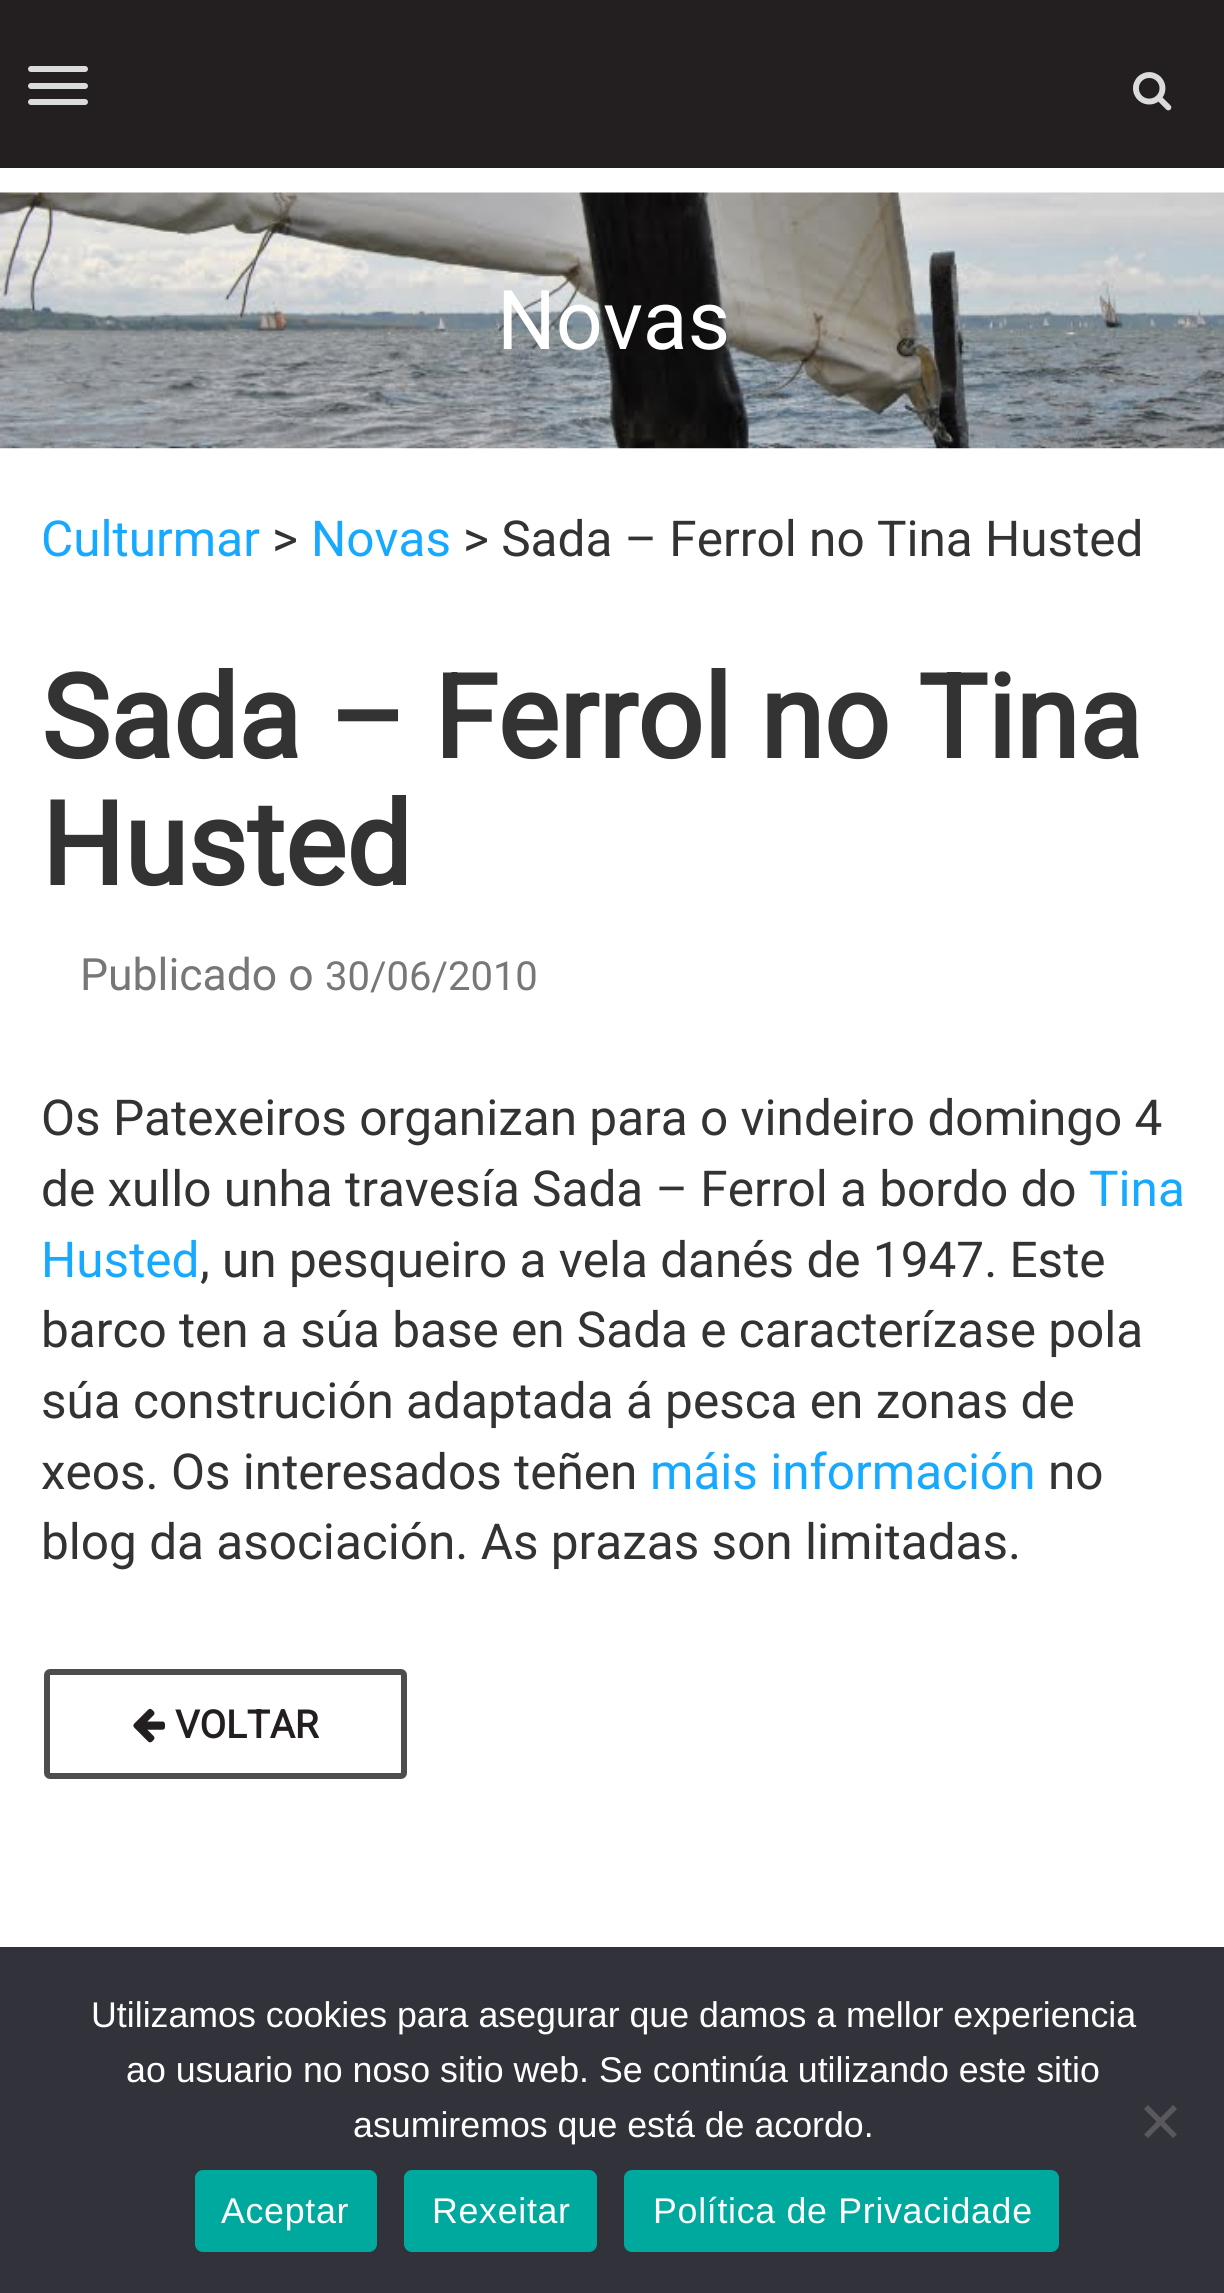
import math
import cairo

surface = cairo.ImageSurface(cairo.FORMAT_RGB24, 1224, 2293)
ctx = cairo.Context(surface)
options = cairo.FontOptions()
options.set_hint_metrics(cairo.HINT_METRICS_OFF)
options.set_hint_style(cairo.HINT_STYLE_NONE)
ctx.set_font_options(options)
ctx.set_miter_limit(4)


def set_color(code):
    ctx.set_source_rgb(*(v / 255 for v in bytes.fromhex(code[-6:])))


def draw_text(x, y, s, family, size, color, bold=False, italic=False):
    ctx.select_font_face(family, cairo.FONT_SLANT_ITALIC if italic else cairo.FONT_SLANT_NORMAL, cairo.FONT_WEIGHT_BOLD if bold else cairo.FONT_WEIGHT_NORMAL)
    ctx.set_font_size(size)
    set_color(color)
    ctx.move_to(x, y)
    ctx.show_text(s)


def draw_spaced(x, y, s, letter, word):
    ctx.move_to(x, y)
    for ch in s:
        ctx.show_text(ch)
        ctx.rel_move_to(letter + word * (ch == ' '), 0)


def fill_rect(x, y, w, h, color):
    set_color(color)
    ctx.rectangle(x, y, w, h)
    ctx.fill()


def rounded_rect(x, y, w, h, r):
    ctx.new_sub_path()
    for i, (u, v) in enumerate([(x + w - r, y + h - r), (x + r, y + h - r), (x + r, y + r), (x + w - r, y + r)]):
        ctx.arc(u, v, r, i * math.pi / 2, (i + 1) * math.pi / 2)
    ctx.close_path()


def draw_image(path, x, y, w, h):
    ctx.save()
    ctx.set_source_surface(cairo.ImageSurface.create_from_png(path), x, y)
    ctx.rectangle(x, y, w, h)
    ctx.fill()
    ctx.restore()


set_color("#ffffff")
ctx.paint()
fill_rect(0, 0, 1224, 168, "#231f20")
set_color("#dcdbdb")
rounded_rect(28, 66, 60, 6, 3)
ctx.fill()
rounded_rect(28, 83, 60, 6, 3)
ctx.fill()
rounded_rect(28, 99, 60, 6, 3)
ctx.fill()
draw_image("assets/img1.png", 1133, 72, 39, 39)
draw_image("assets/img2.png", 0, 192, 1224, 257)
draw_text(497, 349, "Novas", "Roboto", 82.5, "#ffffff")
draw_text(41, 556, "Culturmar", "Roboto", 49.5, "#16a9ff")
draw_text(272, 556, ">", "Roboto", 49.5, "#333333")
draw_text(311, 556, "Novas", "Roboto", 49.5, "#16a9ff")
draw_text(463, 556, "> Sada – Ferrol no Tina Husted", "Roboto", 49.5, "#333333")
draw_text(41, 758, "Sada – Ferrol no Tina", "Roboto", 115.5, "#333333", bold=True)
draw_text(41, 885, "Husted", "Roboto", 115.5, "#333333", bold=True)
draw_text(80, 990, "Publicado o", "Roboto", 44.5, "#777777")
draw_text(325, 990, "30/06/2010", "Roboto", 40, "#777777")
draw_text(41, 1135, "Os Patexeiros organizan para o vindeiro domingo 4", "Roboto", 49.5, "#333333")
draw_text(41, 1206, "de xullo unha travesía Sada – Ferrol a bordo do", "Roboto", 49.5, "#333333")
draw_text(1089, 1206, "Tina", "Roboto", 49.5, "#16a9ff")
draw_text(41, 1277, "Husted", "Roboto", 49.5, "#16a9ff")
draw_text(200, 1277, ", un pesqueiro a vela danés de 1947. Este", "Roboto", 49.5, "#333333")
draw_text(41, 1347, "barco ten a súa base en Sada e caracterízase pola", "Roboto", 49.5, "#333333")
draw_text(41, 1418, "súa construción adaptada á pesca en zonas de", "Roboto", 49.5, "#333333")
draw_text(41, 1489, "xeos. Os interesados teñen", "Roboto", 49.5, "#333333")
draw_text(650, 1489, "máis información", "Roboto", 49.5, "#16a9ff")
draw_text(1048, 1489, "no", "Roboto", 49.5, "#333333")
draw_text(41, 1559, "blog da asociación. As prazas son limitadas.", "Roboto", 49.5, "#333333")
rounded_rect(47, 1672, 357, 104, 3)
set_color("#4f4c4d")
ctx.set_line_width(6)
ctx.stroke()
draw_image("assets/img3.png", 133, 1708, 32, 35)
draw_text(175, 1738, "VOLTAR", "Roboto", 38.5, "#231f20", bold=True)
fill_rect(0, 1947, 1224, 346, "#32323a")
draw_text(91, 2027, "Utilizamos cookies para asegurar que damos a mellor experiencia", "Liberation Sans", 35.75, "#ffffff")
draw_text(126, 2082, "ao usuario no noso sitio web. Se continúa utilizando este sitio", "Liberation Sans", 35.75, "#ffffff")
draw_text(353, 2137, "asumiremos que está de acordo.", "Liberation Sans", 35.75, "#ffffff")
set_color("#59595d")
ctx.new_path()
ctx.move_to(1173, 2105)
ctx.line_to(1177, 2109)
ctx.line_to(1148, 2138)
ctx.line_to(1144, 2134.5)
ctx.close_path()
ctx.fill()
ctx.new_path()
ctx.move_to(1144, 2109)
ctx.line_to(1148, 2105)
ctx.line_to(1177, 2134.5)
ctx.line_to(1173, 2138)
ctx.close_path()
ctx.fill()
set_color("#00a99d")
rounded_rect(195, 2170, 182, 82, 8)
ctx.fill()
set_color("#ffffff")
draw_spaced(221, 2223, "Aceptar", 0.7, 0)
set_color("#00a99d")
rounded_rect(404, 2170, 193, 82, 8)
ctx.fill()
set_color("#ffffff")
draw_spaced(432, 2223, "Rexeitar", 0.7, 0)
set_color("#00a99d")
rounded_rect(624, 2170, 435, 82, 8)
ctx.fill()
set_color("#ffffff")
draw_spaced(653, 2223, "Política de Privacidade", 0.7, 0)
surface.write_to_png("output.png")
